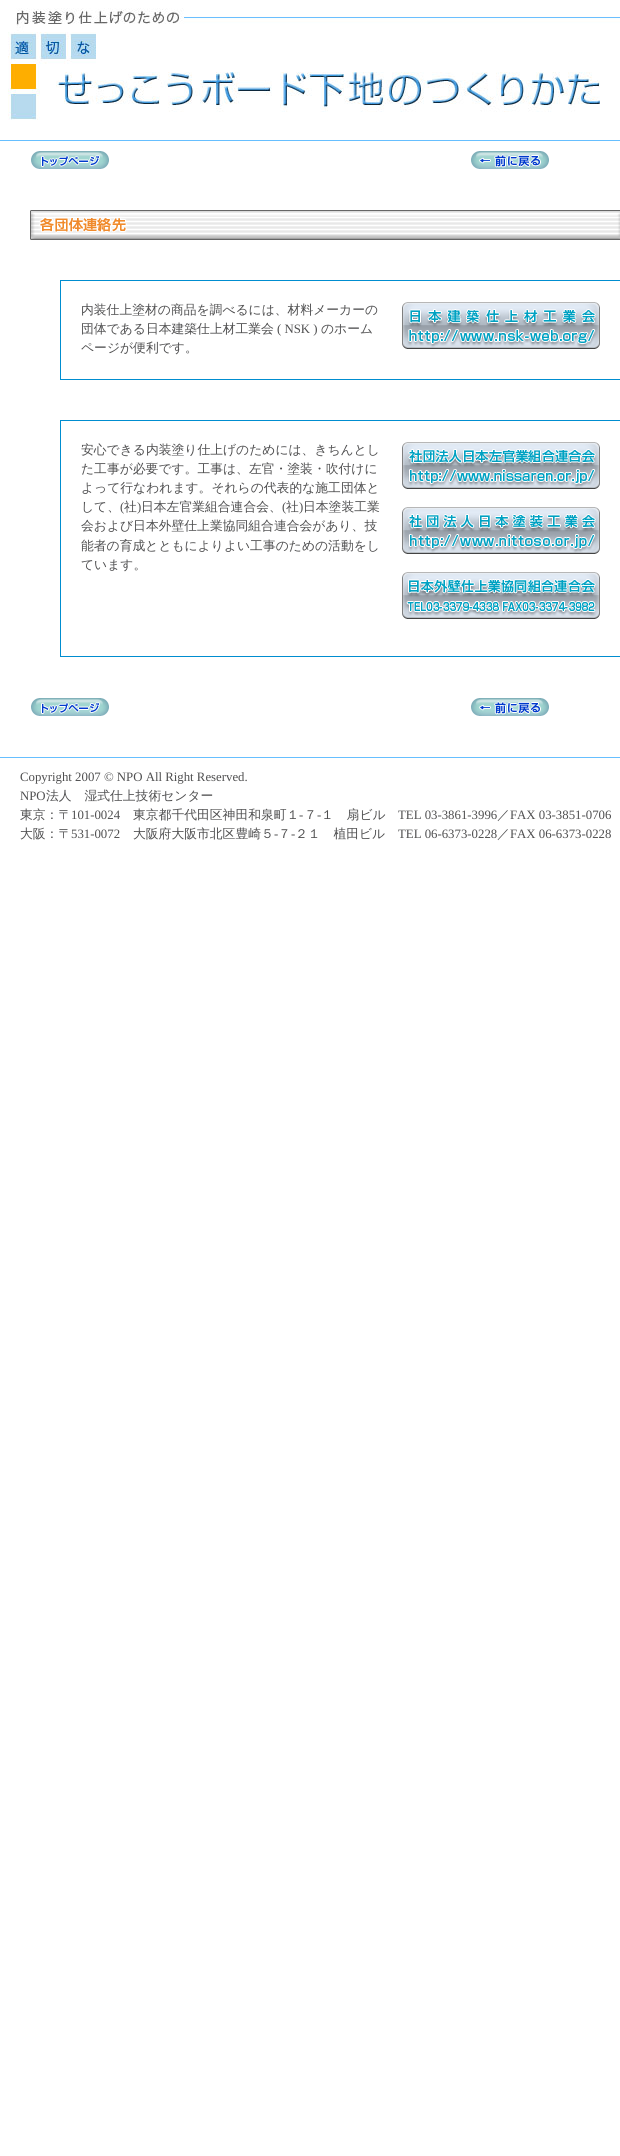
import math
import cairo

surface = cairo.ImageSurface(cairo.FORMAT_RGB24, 620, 2156)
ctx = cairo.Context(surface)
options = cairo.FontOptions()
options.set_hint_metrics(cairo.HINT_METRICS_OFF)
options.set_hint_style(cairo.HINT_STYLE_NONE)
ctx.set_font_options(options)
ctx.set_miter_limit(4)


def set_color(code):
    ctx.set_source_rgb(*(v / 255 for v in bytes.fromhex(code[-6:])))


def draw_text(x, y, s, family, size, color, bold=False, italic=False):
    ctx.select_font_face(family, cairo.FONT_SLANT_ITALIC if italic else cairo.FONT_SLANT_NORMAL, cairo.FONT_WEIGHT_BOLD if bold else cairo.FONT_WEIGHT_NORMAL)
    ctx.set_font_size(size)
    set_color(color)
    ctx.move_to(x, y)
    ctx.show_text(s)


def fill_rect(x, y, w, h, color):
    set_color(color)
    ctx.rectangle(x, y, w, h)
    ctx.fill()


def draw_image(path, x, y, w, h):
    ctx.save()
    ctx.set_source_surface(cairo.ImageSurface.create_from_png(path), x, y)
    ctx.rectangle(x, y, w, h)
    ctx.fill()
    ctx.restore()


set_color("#ffffff")
ctx.paint()
fill_rect(0, 140, 620, 1, "#66bfff")
draw_image("assets/img1.png", 8, 8, 612, 112)
draw_image("assets/img2.png", 31, 151, 78, 18)
draw_image("assets/img3.png", 471, 151, 78, 18)
draw_image("assets/img4.png", 30, 210, 590, 30)
ctx.rectangle(60.5, 280.5, 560, 99)
set_color("#008dd0")
ctx.set_line_width(1)
ctx.stroke()
draw_text(81, 314, "内装仕上塗材の商品を調べるには、材料メーカーの", "WenQuanYi Zen Hei Medium", 12.8, "#4f4f50")
draw_text(81, 333, "団体である日本建築仕上材工業会", "WenQuanYi Zen Hei Medium", 12.8, "#4f4f50")
draw_text(277, 333, "( NSK )", "Liberation Serif", 12.8, "#4f4f50")
draw_text(321, 333, "のホーム", "WenQuanYi Zen Hei Medium", 12.8, "#4f4f50")
draw_text(81, 352, "ページが便利です。", "WenQuanYi Zen Hei Medium", 12.8, "#4f4f50")
draw_image("assets/img5.png", 402, 302, 198, 47)
ctx.rectangle(60.5, 420.5, 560, 236)
set_color("#008dd0")
ctx.stroke()
draw_text(81, 454, "安心できる内装塗り仕上げのためには、きちんとし", "WenQuanYi Zen Hei Medium", 12.8, "#4f4f50")
draw_text(81, 473, "た工事が必要です。工事は、左官・塗装・吹付けに", "WenQuanYi Zen Hei Medium", 12.8, "#4f4f50")
draw_text(81, 492, "よって行なわれます。それらの代表的な施工団体と", "WenQuanYi Zen Hei Medium", 12.8, "#4f4f50")
draw_text(81, 511, "して、", "WenQuanYi Zen Hei Medium", 12.8, "#4f4f50")
draw_text(120, 511, "(", "Liberation Serif", 12.8, "#4f4f50")
draw_text(124, 511, "社", "WenQuanYi Zen Hei Medium", 12.8, "#4f4f50")
draw_text(137, 511, ")", "Liberation Serif", 12.8, "#4f4f50")
draw_text(141, 511, "日本左官業組合連合会、", "WenQuanYi Zen Hei Medium", 12.8, "#4f4f50")
draw_text(282, 511, "(", "Liberation Serif", 12.8, "#4f4f50")
draw_text(286, 511, "社", "WenQuanYi Zen Hei Medium", 12.8, "#4f4f50")
draw_text(299, 511, ")", "Liberation Serif", 12.8, "#4f4f50")
draw_text(303, 511, "日本塗装工業", "WenQuanYi Zen Hei Medium", 12.8, "#4f4f50")
draw_text(81, 530, "会および日本外壁仕上業協同組合連合会があり、技", "WenQuanYi Zen Hei Medium", 12.8, "#4f4f50")
draw_text(81, 550, "能者の育成とともによりよい工事のための活動をし", "WenQuanYi Zen Hei Medium", 12.8, "#4f4f50")
draw_text(81, 569, "ています。", "WenQuanYi Zen Hei Medium", 12.8, "#4f4f50")
draw_image("assets/img6.png", 402, 442, 198, 47)
draw_image("assets/img7.png", 402, 507, 198, 47)
draw_image("assets/img8.png", 402, 572, 198, 47)
draw_image("assets/img2.png", 31, 698, 78, 18)
draw_image("assets/img3.png", 471, 698, 78, 18)
fill_rect(0, 757, 620, 1, "#66bfff")
draw_text(20, 781, "Copyright 2007 © NPO All Right Reserved.", "Liberation Serif", 12.8, "#4f4f50")
draw_text(20, 800, "NPO", "Liberation Serif", 12.8, "#4f4f50")
draw_text(46, 800, "法人　湿式仕上技術センター", "WenQuanYi Zen Hei Medium", 12.8, "#4f4f50")
draw_text(20, 819, "東京：〒", "WenQuanYi Zen Hei Medium", 12.8, "#4f4f50")
draw_text(71, 819, "101-0024", "Liberation Serif", 12.8, "#4f4f50")
draw_text(133, 819, "東京都千代田区神田和泉町１", "WenQuanYi Zen Hei Medium", 12.8, "#4f4f50")
draw_text(299, 819, "-", "Liberation Serif", 12.8, "#4f4f50")
draw_text(304, 819, "７", "WenQuanYi Zen Hei Medium", 12.8, "#4f4f50")
draw_text(317, 819, "-", "Liberation Serif", 12.8, "#4f4f50")
draw_text(321, 819, "１　扇ビル", "WenQuanYi Zen Hei Medium", 12.8, "#4f4f50")
draw_text(398, 819, "TEL 03-3861-3996", "Liberation Serif", 12.8, "#4f4f50")
draw_text(497, 819, "／", "WenQuanYi Zen Hei Medium", 12.8, "#4f4f50")
draw_text(510, 819, "FAX 03-3851-0706", "Liberation Serif", 12.8, "#4f4f50")
draw_text(20, 838, "大阪：〒", "WenQuanYi Zen Hei Medium", 12.8, "#4f4f50")
draw_text(71, 838, "531-0072", "Liberation Serif", 12.8, "#4f4f50")
draw_text(133, 838, "大阪府大阪市北区豊崎５", "WenQuanYi Zen Hei Medium", 12.8, "#4f4f50")
draw_text(274, 838, "-", "Liberation Serif", 12.8, "#4f4f50")
draw_text(278, 838, "７", "WenQuanYi Zen Hei Medium", 12.8, "#4f4f50")
draw_text(291, 838, "-", "Liberation Serif", 12.8, "#4f4f50")
draw_text(295, 838, "２１　植田ビル", "WenQuanYi Zen Hei Medium", 12.8, "#4f4f50")
draw_text(398, 838, "TEL 06-6373-0228", "Liberation Serif", 12.8, "#4f4f50")
draw_text(497, 838, "／", "WenQuanYi Zen Hei Medium", 12.8, "#4f4f50")
draw_text(510, 838, "FAX 06-6373-0228", "Liberation Serif", 12.8, "#4f4f50")
surface.write_to_png("output.png")
